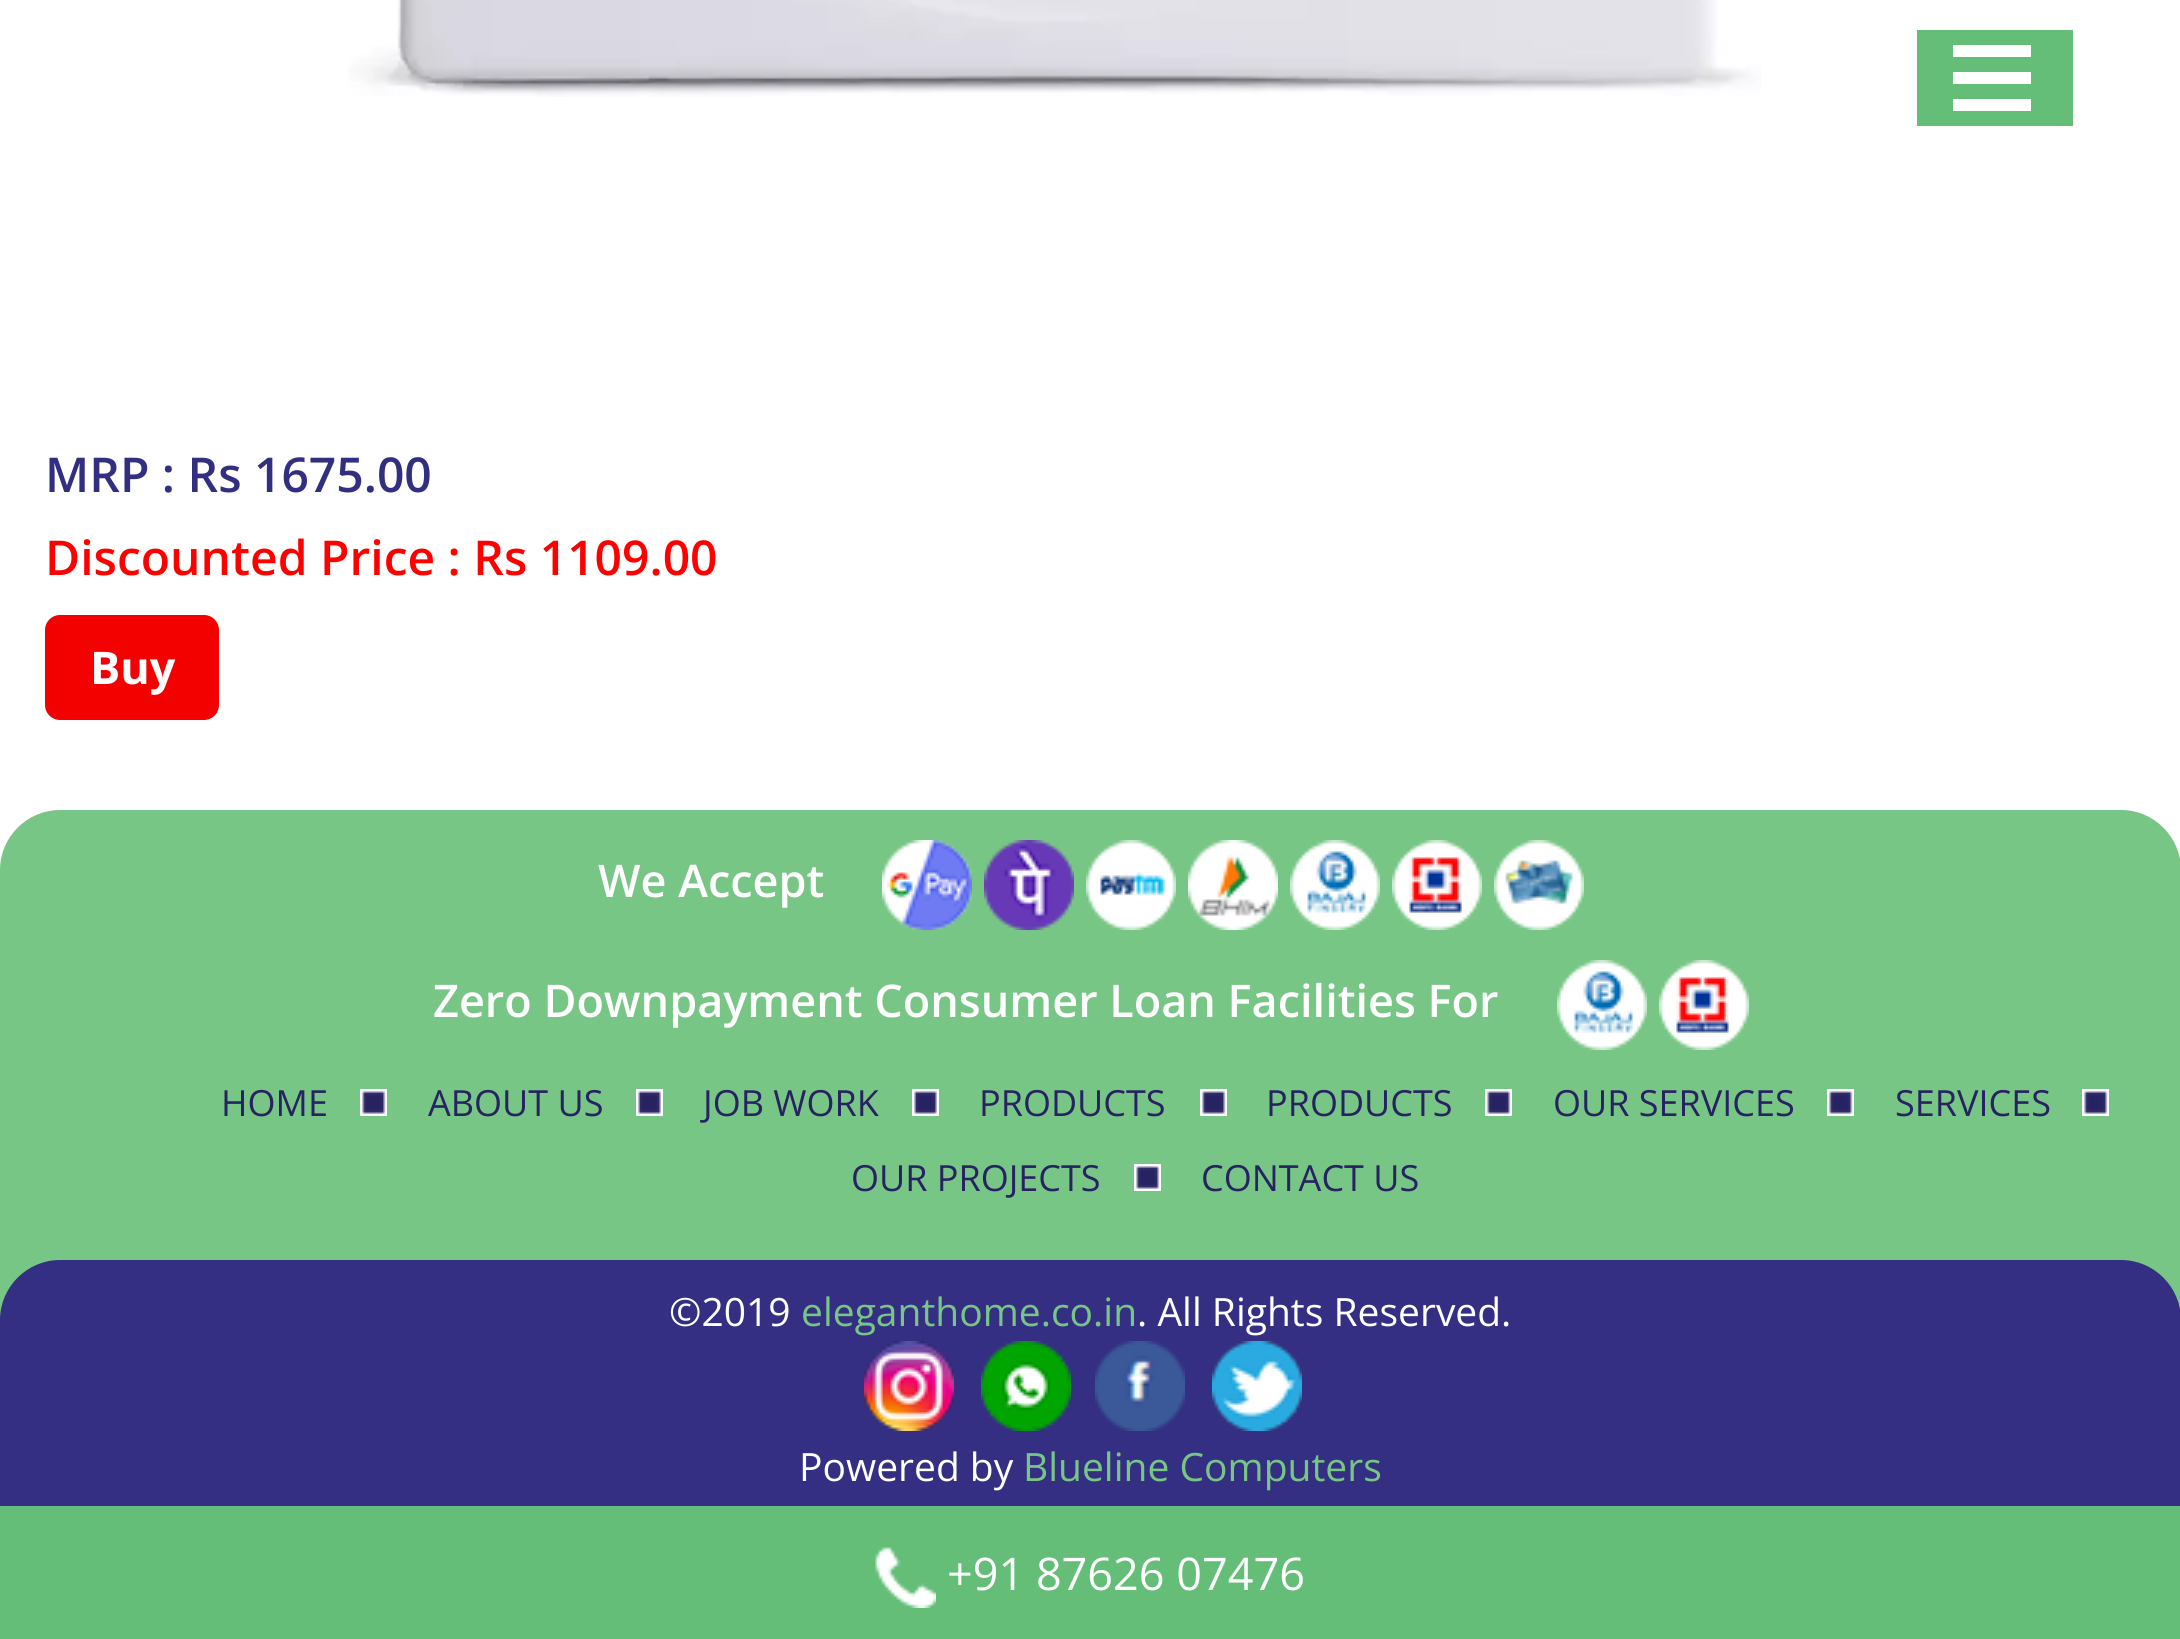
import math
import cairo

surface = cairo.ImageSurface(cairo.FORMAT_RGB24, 2180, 1639)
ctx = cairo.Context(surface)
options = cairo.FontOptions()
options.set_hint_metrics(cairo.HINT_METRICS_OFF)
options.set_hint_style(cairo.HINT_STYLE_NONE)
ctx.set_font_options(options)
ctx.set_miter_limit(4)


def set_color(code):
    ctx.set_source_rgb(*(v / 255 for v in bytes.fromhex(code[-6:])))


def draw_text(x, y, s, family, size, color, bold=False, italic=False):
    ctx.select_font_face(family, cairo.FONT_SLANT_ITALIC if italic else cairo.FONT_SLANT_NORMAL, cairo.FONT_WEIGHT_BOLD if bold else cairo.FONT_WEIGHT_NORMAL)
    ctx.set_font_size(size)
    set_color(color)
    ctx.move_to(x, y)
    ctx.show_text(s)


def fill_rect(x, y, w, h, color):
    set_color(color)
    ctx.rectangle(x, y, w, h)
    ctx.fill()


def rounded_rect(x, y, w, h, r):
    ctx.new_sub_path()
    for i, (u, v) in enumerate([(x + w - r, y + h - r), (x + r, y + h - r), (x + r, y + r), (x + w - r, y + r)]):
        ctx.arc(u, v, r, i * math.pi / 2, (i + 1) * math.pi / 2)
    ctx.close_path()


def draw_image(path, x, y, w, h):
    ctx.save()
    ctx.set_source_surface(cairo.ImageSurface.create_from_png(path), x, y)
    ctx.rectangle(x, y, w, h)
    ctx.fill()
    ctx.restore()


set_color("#ffffff")
ctx.paint()
draw_image("assets/img1.png", 348, 0, 1413, 97)
draw_text(45, 492, "MRP : Rs 1675.00", "Open Sans SemiBold", 48, "#322e81")
draw_text(45, 575, "Discounted Price : Rs 1109.00", "Open Sans SemiBold", 48, "#ff0000")
set_color("#f20100")
rounded_rect(45, 615, 174, 105, 15)
ctx.fill()
draw_text(90, 684, "Buy", "Open Sans", 45, "#ffffff", bold=True)
set_color("#78c686")
ctx.new_path()
ctx.move_to(60, 810)
ctx.line_to(2121, 810)
ctx.curve_to(2154, 810, 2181, 837, 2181, 870)
ctx.line_to(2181, 1320)
ctx.line_to(0, 1320)
ctx.line_to(0, 870)
ctx.curve_to(0, 837, 27, 810, 60, 810)
ctx.close_path()
ctx.fill()
draw_text(598, 897, "We Accept", "Open Sans SemiBold", 45, "#ffffff")
draw_image("assets/img2.png", 882, 840, 90, 90)
draw_image("assets/img3.png", 984, 840, 90, 90)
draw_image("assets/img4.png", 1086, 840, 90, 90)
draw_image("assets/img5.png", 1188, 840, 90, 90)
draw_image("assets/img6.png", 1290, 840, 90, 90)
draw_image("assets/img7.png", 1392, 840, 90, 90)
draw_image("assets/img8.png", 1494, 840, 90, 90)
draw_text(433, 1017, "Zero Downpayment Consumer Loan Facilities For", "Open Sans SemiBold", 45, "#ffffff")
draw_image("assets/img9.png", 1557, 960, 90, 90)
draw_image("assets/img7.png", 1659, 960, 90, 90)
draw_text(221, 1116, "HOME", "Open Sans", 36, "#272262")
draw_image("assets/img10.png", 360, 1089, 27, 27)
draw_text(428, 1116, "ABOUT US", "Open Sans", 36, "#272262")
draw_image("assets/img11.png", 636, 1089, 27, 27)
draw_text(703, 1116, "JOB WORK", "Open Sans", 36, "#272262")
draw_image("assets/img11.png", 912, 1089, 27, 27)
draw_text(979, 1116, "PRODUCTS", "Open Sans", 36, "#272262")
draw_image("assets/img10.png", 1200, 1089, 27, 27)
draw_text(1266, 1116, "PRODUCTS", "Open Sans", 36, "#272262")
draw_image("assets/img10.png", 1485, 1089, 27, 27)
draw_text(1553, 1116, "OUR SERVICES", "Open Sans", 36, "#272262")
draw_image("assets/img10.png", 1827, 1089, 27, 27)
draw_text(1895, 1116, "SERVICES", "Open Sans", 36, "#272262")
draw_image("assets/img10.png", 2082, 1089, 27, 27)
draw_text(851, 1191, "OUR PROJECTS", "Open Sans", 36, "#272262")
draw_image("assets/img10.png", 1134, 1164, 27, 27)
draw_text(1201, 1191, "CONTACT US", "Open Sans", 36, "#272262")
set_color("#342f83")
ctx.new_path()
ctx.move_to(60, 1260)
ctx.line_to(2121, 1260)
ctx.curve_to(2154, 1260, 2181, 1287, 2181, 1320)
ctx.line_to(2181, 1521)
ctx.line_to(0, 1521)
ctx.line_to(0, 1320)
ctx.curve_to(0, 1287, 27, 1260, 60, 1260)
ctx.close_path()
ctx.fill()
draw_text(669, 1326, "©2019", "Open Sans", 39, "#ffffff")
draw_text(801, 1326, "eleganthome.co.in", "Open Sans", 39, "#78c686")
draw_text(1137, 1326, ". All Rights Reserved.", "Open Sans", 39, "#ffffff")
draw_image("assets/img12.png", 864, 1341, 90, 90)
draw_image("assets/img13.png", 981, 1341, 90, 90)
draw_image("assets/img14.png", 1095, 1341, 90, 90)
draw_image("assets/img15.png", 1212, 1341, 90, 90)
draw_text(799, 1481, "Powered by", "Open Sans", 39, "#ffffff")
draw_text(1023, 1481, "Blueline Computers", "Open Sans", 39, "#78c686")
fill_rect(1917, 30, 156, 96, "#64be78")
fill_rect(1953, 45, 78, 12, "#ffffff")
fill_rect(1953, 72, 78, 12, "#ffffff")
fill_rect(1953, 99, 78, 12, "#ffffff")
fill_rect(0, 1506, 2180, 133, "#64be78")
draw_image("assets/img16.png", 875, 1547, 61, 61)
draw_text(947, 1590, "+91 87626 07476", "Open Sans", 45, "#ffffff")
surface.write_to_png("output.png")
